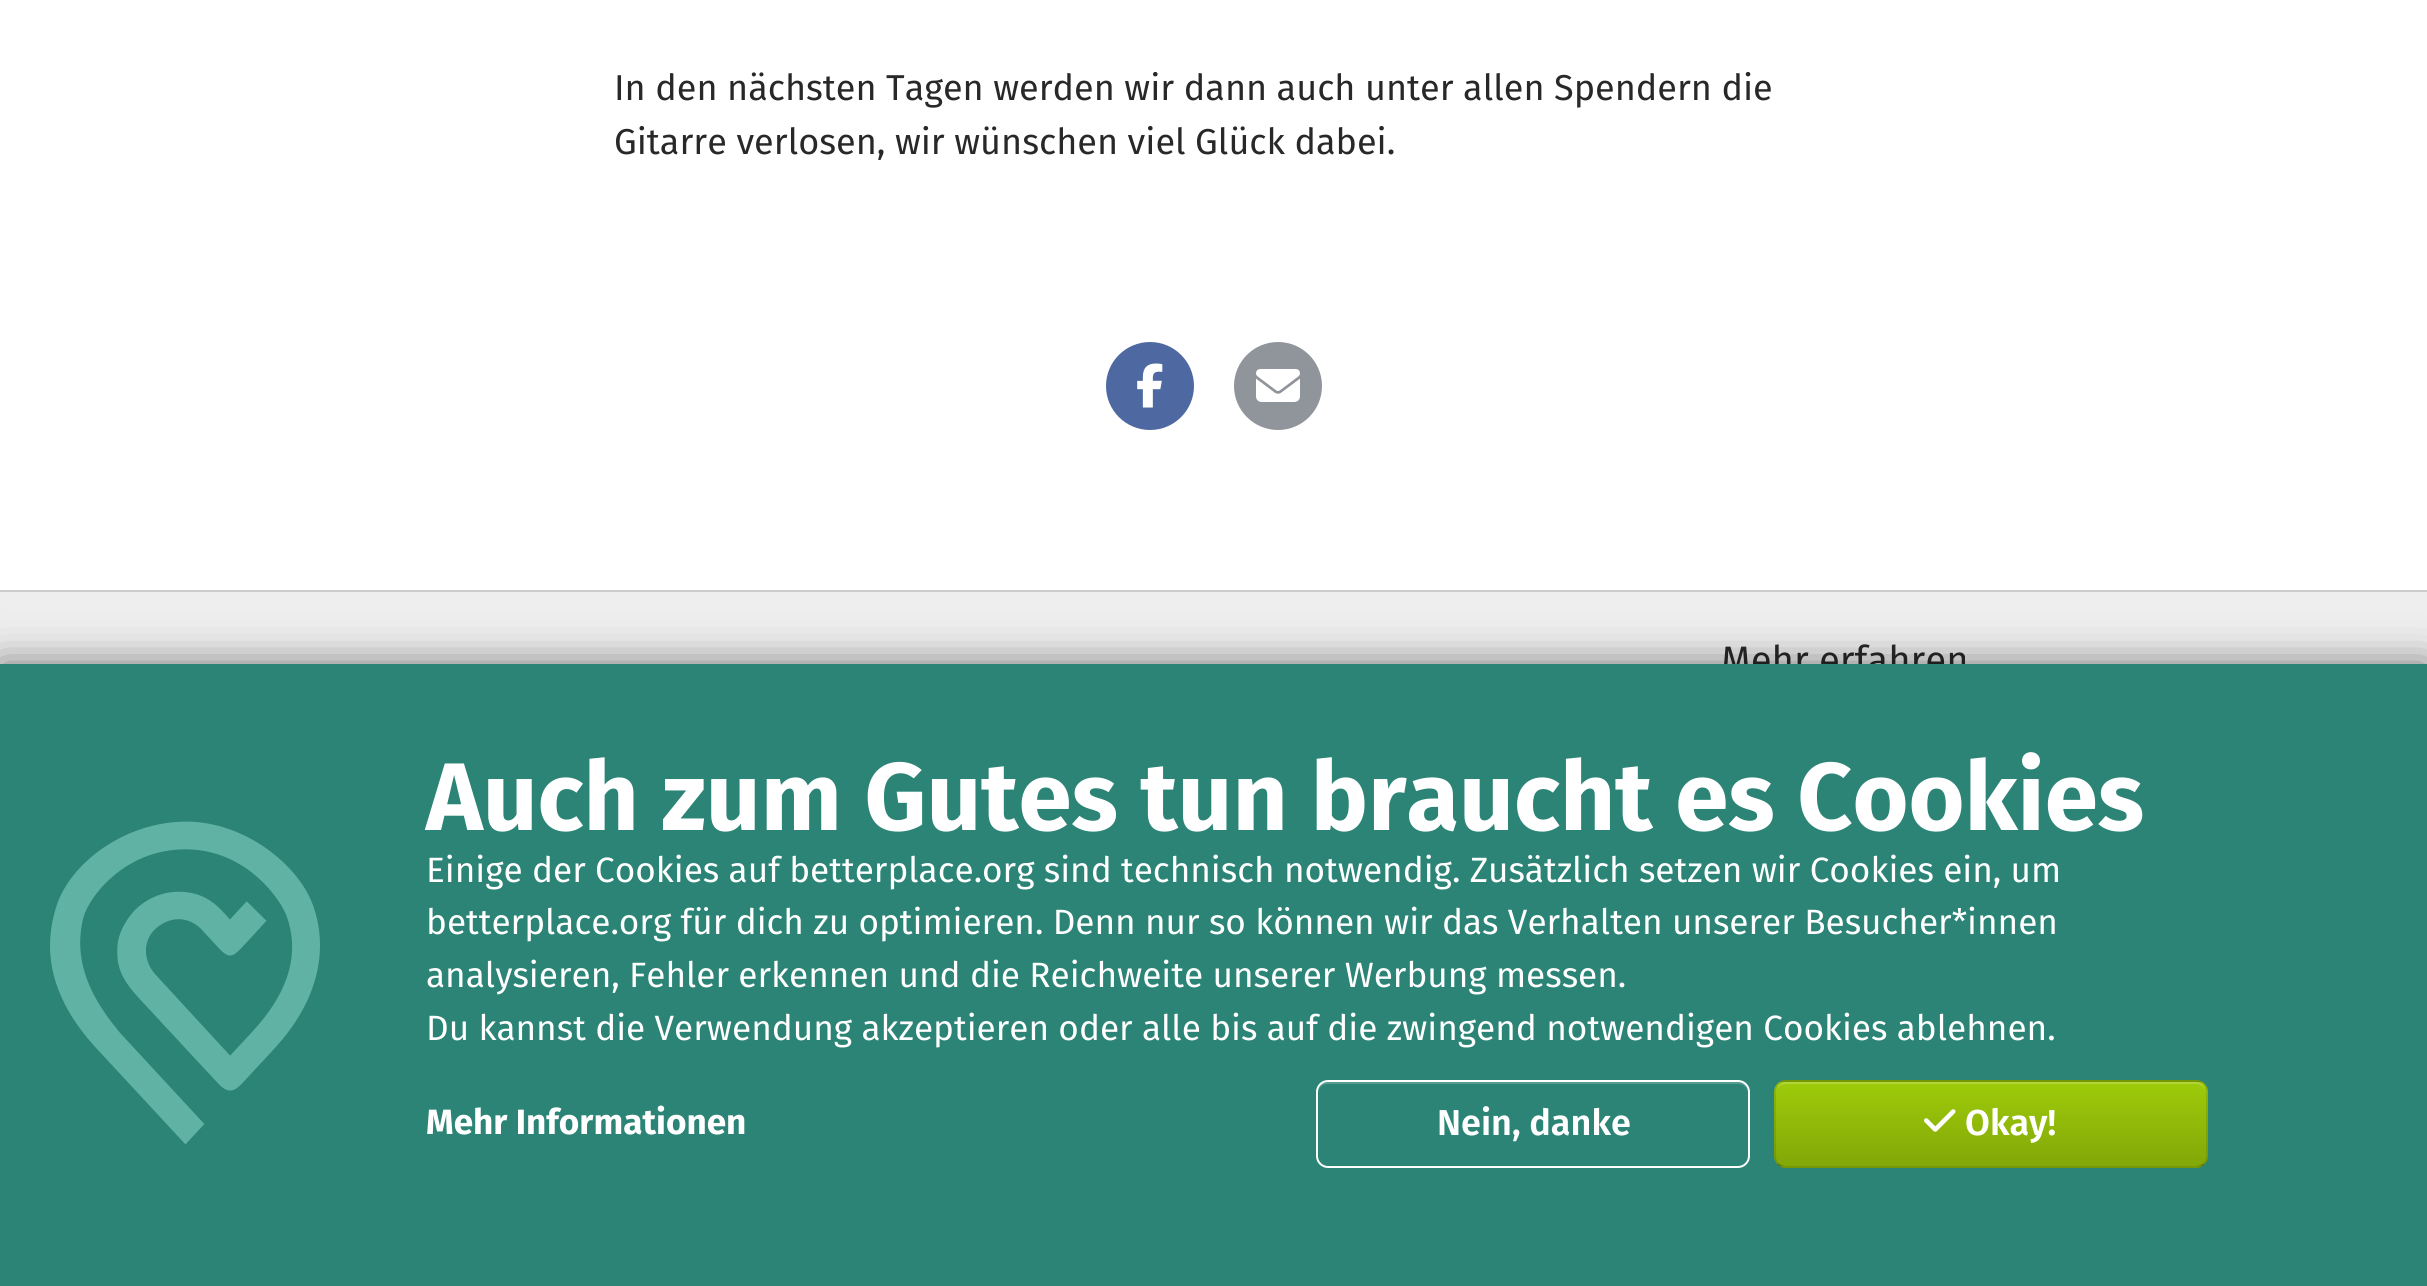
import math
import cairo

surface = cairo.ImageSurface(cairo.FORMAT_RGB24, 2427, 1286)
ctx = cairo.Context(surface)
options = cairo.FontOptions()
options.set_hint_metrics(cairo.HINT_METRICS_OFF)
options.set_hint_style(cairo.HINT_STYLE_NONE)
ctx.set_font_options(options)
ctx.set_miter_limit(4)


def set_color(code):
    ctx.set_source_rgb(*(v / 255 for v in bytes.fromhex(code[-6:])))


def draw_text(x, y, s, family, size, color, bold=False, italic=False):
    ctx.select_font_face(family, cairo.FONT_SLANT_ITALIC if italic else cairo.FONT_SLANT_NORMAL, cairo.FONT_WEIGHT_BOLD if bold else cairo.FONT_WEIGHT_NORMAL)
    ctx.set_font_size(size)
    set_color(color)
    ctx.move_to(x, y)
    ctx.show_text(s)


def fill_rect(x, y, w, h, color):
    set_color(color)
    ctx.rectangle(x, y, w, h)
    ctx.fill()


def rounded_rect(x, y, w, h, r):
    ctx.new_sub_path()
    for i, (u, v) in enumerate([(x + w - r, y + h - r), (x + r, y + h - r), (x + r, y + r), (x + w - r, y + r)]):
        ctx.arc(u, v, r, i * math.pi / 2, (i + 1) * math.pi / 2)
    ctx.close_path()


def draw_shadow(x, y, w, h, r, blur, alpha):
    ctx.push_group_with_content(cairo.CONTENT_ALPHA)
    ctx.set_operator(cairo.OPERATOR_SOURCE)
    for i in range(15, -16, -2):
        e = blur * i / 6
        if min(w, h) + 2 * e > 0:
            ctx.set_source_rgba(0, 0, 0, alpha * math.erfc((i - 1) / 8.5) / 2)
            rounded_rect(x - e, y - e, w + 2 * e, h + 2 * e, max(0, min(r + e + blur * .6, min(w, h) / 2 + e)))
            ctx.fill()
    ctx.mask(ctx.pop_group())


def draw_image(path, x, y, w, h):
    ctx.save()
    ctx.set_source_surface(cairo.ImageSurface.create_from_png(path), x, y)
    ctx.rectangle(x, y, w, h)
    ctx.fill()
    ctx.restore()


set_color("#ffffff")
ctx.paint()
draw_text(614, 100, "In den nächsten Tagen werden wir dann auch unter allen Spendern die", "Fira Sans", 36, "#282828")
draw_text(614, 154, "Gitarre verlosen, wir wünschen viel Glück dabei.", "Fira Sans", 36, "#282828")
set_color("#4e69a2")
ctx.new_path()
ctx.arc(1150, 386, 44, 0, 2 * math.pi)
ctx.fill()
draw_image("assets/img1.png", 1137, 363, 26, 45)
set_color("#90959b")
ctx.arc(1278, 386, 44, 0, 2 * math.pi)
ctx.fill()
draw_image("assets/img2.png", 1256, 369, 44, 33)
fill_rect(0, 590, 2427, 2, "#cccccc")
fill_rect(0, 592, 2427, 72, "#eeeeee")
draw_text(1721, 673, "Mehr erfahren", "Fira Sans", 38.25, "#282828")
set_color("#000000")
draw_shadow(0, 664, 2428, 622, 0, 20, 0.5)
fill_rect(0, 664, 2427, 622, "#2b8475")
draw_image("assets/img3.png", 50, 821, 270, 324)
draw_text(426, 830, "Auch zum Gutes tun braucht es Cookies", "Fira Sans", 96, "#ffffff", bold=True)
draw_text(426, 882, "Einige der Cookies auf betterplace.org sind technisch notwendig. Zusätzlich setzen wir Cookies ein, um", "Fira Sans", 35.15, "#ffffff")
draw_text(426, 934, "betterplace.org für dich zu optimieren. Denn nur so können wir das Verhalten unserer Besucher*innen", "Fira Sans", 35.15, "#ffffff")
draw_text(426, 987, "analysieren, Fehler erkennen und die Reichweite unserer Werbung messen.", "Fira Sans", 35.15, "#ffffff")
draw_text(426, 1040, "Du kannst die Verwendung akzeptieren oder alle bis auf die zwingend notwendigen Cookies ablehnen.", "Fira Sans", 35.15, "#ffffff")
draw_text(426, 1134, "Mehr Informationen", "Fira Sans", 35.15, "#ffffff", bold=True)
set_color("#559d91")
ctx.new_path()
ctx.move_to(1328, 1084)
ctx.line_to(1738, 1084)
ctx.curve_to(1744, 1084, 1748, 1088, 1748, 1094)
ctx.curve_to(1748, 1088, 1745, 1082, 1738, 1082)
ctx.line_to(1326, 1082)
ctx.curve_to(1320, 1083, 1318, 1089, 1318, 1094)
ctx.curve_to(1318, 1088, 1322, 1084, 1328, 1084)
ctx.close_path()
ctx.fill()
rounded_rect(1317, 1081, 432, 86, 11)
set_color("#ffffff")
ctx.stroke()
draw_text(1437, 1135, "Nein, danke", "Fira Sans SemiBold", 36, "#ffffff")
ctx.save()
rounded_rect(1774, 1080, 434, 88, 12)
ctx.clip()
gradient = cairo.LinearGradient(1991, 998, 1991, 1082)
gradient.add_color_stop_rgba(0, 0.62, 0.796, 0.039, 1)
gradient.add_color_stop_rgba(1, 0.51, 0.655, 0.031, 1)
ctx.set_source(gradient)
ctx.rectangle(1774, 1080, 434, 2)
ctx.fill()
gradient = cairo.LinearGradient(1991, 1082, 1991, 1166)
gradient.add_color_stop_rgba(0, 0.62, 0.796, 0.039, 1)
gradient.add_color_stop_rgba(1, 0.51, 0.655, 0.031, 1)
ctx.set_source(gradient)
ctx.rectangle(1774, 1082, 434, 84)
ctx.fill()
gradient = cairo.LinearGradient(1991, 1166, 1991, 1250)
gradient.add_color_stop_rgba(0, 0.62, 0.796, 0.039, 1)
gradient.add_color_stop_rgba(1, 0.51, 0.655, 0.031, 1)
ctx.set_source(gradient)
ctx.rectangle(1774, 1166, 434, 2)
ctx.fill()
ctx.restore()
set_color("#b1d53b")
ctx.new_path()
ctx.move_to(1786, 1084)
ctx.line_to(2196, 1084)
ctx.curve_to(2202, 1084, 2206, 1088, 2206, 1094)
ctx.curve_to(2206, 1088, 2203, 1082, 2196, 1082)
ctx.line_to(1784, 1082)
ctx.curve_to(1778, 1083, 1776, 1089, 1776, 1094)
ctx.curve_to(1776, 1088, 1780, 1084, 1786, 1084)
ctx.close_path()
ctx.fill()
ctx.new_path()
ctx.move_to(2204, 1164)
ctx.curve_to(2201.5, 1166, 2199, 1167, 2196, 1167)
ctx.line_to(1786, 1167)
ctx.curve_to(1783, 1167, 1780.5, 1166, 1778, 1164)
ctx.set_source_rgba(0, 0, 0, 0.25)
ctx.stroke()
ctx.new_path()
ctx.move_to(1778, 1164)
ctx.curve_to(1776, 1161.5, 1775, 1159, 1775, 1156)
ctx.line_to(1775, 1092)
ctx.curve_to(1775, 1089, 1776, 1086.5, 1778, 1084)
ctx.curve_to(1780.5, 1082, 1783, 1081, 1786, 1081)
ctx.line_to(2196, 1081)
ctx.curve_to(2199, 1081, 2201.5, 1082, 2204, 1084)
ctx.curve_to(2206, 1086.5, 2207, 1089, 2207, 1092)
ctx.line_to(2207, 1156)
ctx.curve_to(2207, 1159, 2206, 1161.5, 2204, 1164)
ctx.set_source_rgba(0, 0, 0, 0.1)
ctx.stroke()
draw_image("assets/img4.png", 1924, 1109, 32, 23)
draw_text(1965, 1135, "Okay!", "Fira Sans SemiBold", 36, "#ffffff")
surface.write_to_png("output.png")
